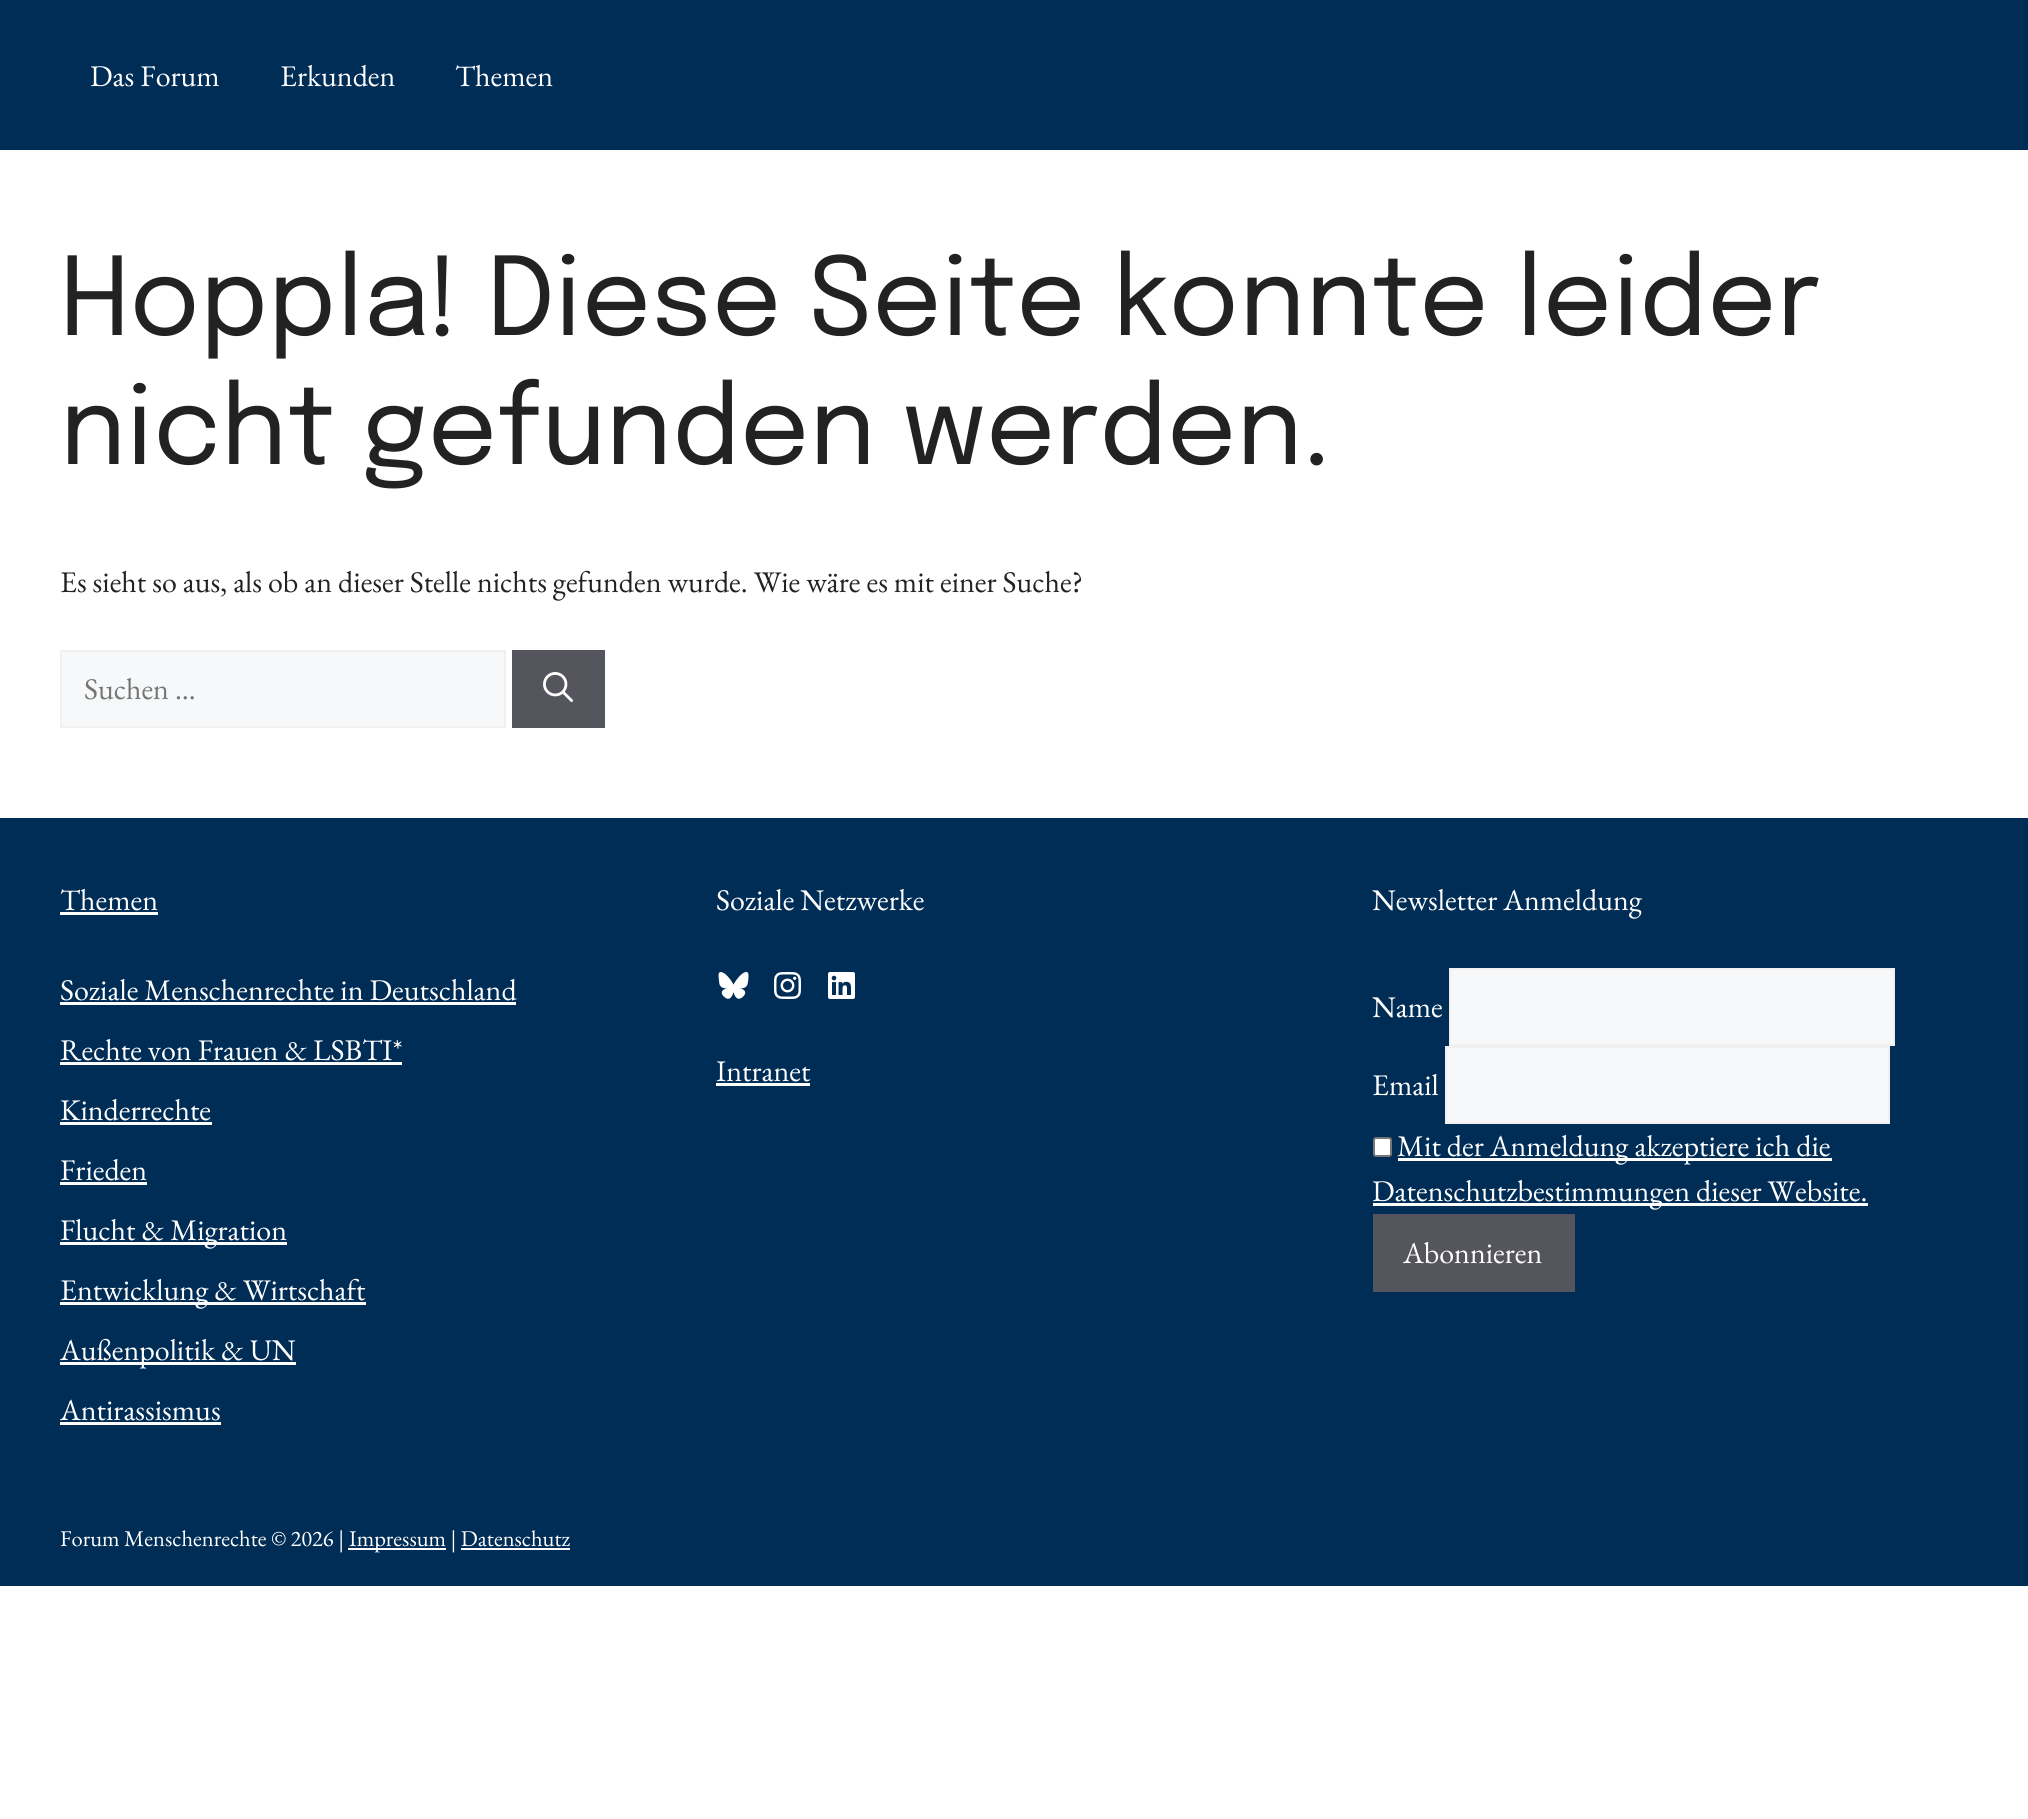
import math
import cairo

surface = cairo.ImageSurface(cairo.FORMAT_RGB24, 2028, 1819)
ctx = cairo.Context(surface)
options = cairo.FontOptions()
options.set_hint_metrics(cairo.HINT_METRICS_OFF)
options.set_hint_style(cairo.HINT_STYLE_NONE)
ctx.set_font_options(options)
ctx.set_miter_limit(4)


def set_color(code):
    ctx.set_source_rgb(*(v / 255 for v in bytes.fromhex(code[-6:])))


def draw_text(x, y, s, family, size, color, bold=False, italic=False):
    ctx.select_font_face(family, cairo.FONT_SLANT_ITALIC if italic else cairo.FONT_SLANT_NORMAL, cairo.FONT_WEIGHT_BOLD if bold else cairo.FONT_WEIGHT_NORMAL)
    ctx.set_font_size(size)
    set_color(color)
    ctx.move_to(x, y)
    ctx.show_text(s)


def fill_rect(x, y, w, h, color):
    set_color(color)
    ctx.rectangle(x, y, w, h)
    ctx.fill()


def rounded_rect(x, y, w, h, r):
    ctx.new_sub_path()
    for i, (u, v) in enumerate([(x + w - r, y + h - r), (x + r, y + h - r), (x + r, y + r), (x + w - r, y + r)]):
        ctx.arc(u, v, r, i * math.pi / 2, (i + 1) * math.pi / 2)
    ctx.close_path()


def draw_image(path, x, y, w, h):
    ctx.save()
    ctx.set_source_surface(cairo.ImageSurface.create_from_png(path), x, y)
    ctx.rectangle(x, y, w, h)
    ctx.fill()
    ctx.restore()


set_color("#ffffff")
ctx.paint()
fill_rect(0, 0, 2028, 150, "#002d56")
draw_text(90, 86, "Das Forum", "EB Garamond", 30, "#ffffff")
draw_text(280, 86, "Erkunden", "EB Garamond", 30, "#ffffff")
draw_text(455, 86, "Themen", "EB Garamond", 30, "#ffffff")
draw_text(60, 335, "Hoppla! Diese Seite konnte leider", "Epilogue", 108, "#222222")
draw_text(60, 464, "nicht gefunden werden.", "Epilogue", 108, "#222222")
draw_text(60, 592, "Es sieht so aus, als ob an dieser Stelle nichts gefunden wurde. Wie wäre es mit einer Suche?", "EB Garamond", 30, "#222222")
set_color("#f7f8f9")
ctx.rectangle(61, 651, 444, 76)
ctx.fill_preserve()
set_color("#f0f0f0")
ctx.stroke()
draw_text(84, 699, "Suchen …", "EB Garamond", 30, "#757575")
fill_rect(512, 650, 93, 78, "#55555e")
draw_image("assets/img1.png", 543, 672, 30, 30)
fill_rect(0, 818, 2028, 768, "#002d56")
draw_text(60, 910, "Themen", "EB Garamond", 30, "#ffffff")
fill_rect(60, 912, 98, 3, "#ffffff")
draw_text(60, 1000, "Soziale Menschenrechte in Deutschland", "EB Garamond", 30, "#ffffff")
fill_rect(60, 1002, 456, 3, "#ffffff")
draw_text(60, 1060, "Rechte von Frauen & LSBTI*", "EB Garamond", 30, "#ffffff")
fill_rect(60, 1062, 342, 3, "#ffffff")
draw_text(60, 1120, "Kinderrechte", "EB Garamond", 30, "#ffffff")
fill_rect(60, 1122, 152, 3, "#ffffff")
draw_text(60, 1180, "Frieden", "EB Garamond", 30, "#ffffff")
fill_rect(60, 1182, 87, 3, "#ffffff")
fill_rect(60, 1242, 227, 3, "#ffffff")
draw_text(60, 1240, "Flucht & Migration", "EB Garamond", 30, "#ffffff")
fill_rect(60, 1302, 306, 3, "#ffffff")
draw_text(60, 1300, "Entwicklung & Wirtschaft", "EB Garamond", 30, "#ffffff")
fill_rect(60, 1362, 236, 3, "#ffffff")
draw_text(60, 1360, "Außenpolitik & UN", "EB Garamond", 30, "#ffffff")
draw_text(60, 1420, "Antirassismus", "EB Garamond", 30, "#ffffff")
fill_rect(60, 1422, 161, 3, "#ffffff")
draw_text(716, 910, "Soziale Netzwerke", "EB Garamond", 30, "#ffffff")
draw_image("assets/img2.png", 718, 972, 31, 27)
draw_image("assets/img3.png", 774, 972, 27, 27)
draw_image("assets/img4.png", 828, 972, 27, 27)
draw_text(716, 1081, "Intranet", "EB Garamond", 30, "#ffffff")
fill_rect(716, 1083, 94, 3, "#ffffff")
draw_text(1372, 910, "Newsletter Anmeldung", "EB Garamond", 30, "#ffffff")
draw_text(1372, 1017, "Name", "EB Garamond", 30, "#ffffff")
set_color("#f7f8f9")
ctx.rectangle(1450, 969, 444, 76)
ctx.fill_preserve()
set_color("#f0f0f0")
ctx.stroke()
draw_text(1372, 1095, "Email", "EB Garamond", 30, "#ffffff")
set_color("#f7f8f9")
ctx.rectangle(1446, 1047, 443, 76)
ctx.fill_preserve()
set_color("#f0f0f0")
ctx.stroke()
set_color("#ffffff")
rounded_rect(1374, 1138, 17, 18, 2)
ctx.fill_preserve()
set_color("#767676")
ctx.stroke()
fill_rect(1398, 1158, 434, 3, "#ffffff")
draw_text(1397, 1156, "Mit der Anmeldung akzeptiere ich die", "EB Garamond", 30, "#ffffff")
fill_rect(1373, 1203, 495, 3, "#ffffff")
draw_text(1372, 1201, "Datenschutzbestimmungen dieser Website.", "EB Garamond", 30, "#ffffff")
fill_rect(1373, 1214, 202, 78, "#55555e")
draw_text(1403, 1263, "Abonnieren", "EB Garamond", 30, "#ffffff")
draw_text(60, 1546, "Forum Menschenrechte © 2026 |", "EB Garamond", 22.5, "#ffffff")
fill_rect(348, 1548, 98, 2, "#ffffff")
draw_text(349, 1546, "Impressum | Datenschutz", "EB Garamond", 22.5, "#ffffff")
fill_rect(461, 1548, 109, 2, "#ffffff")
surface.write_to_png("output.png")
